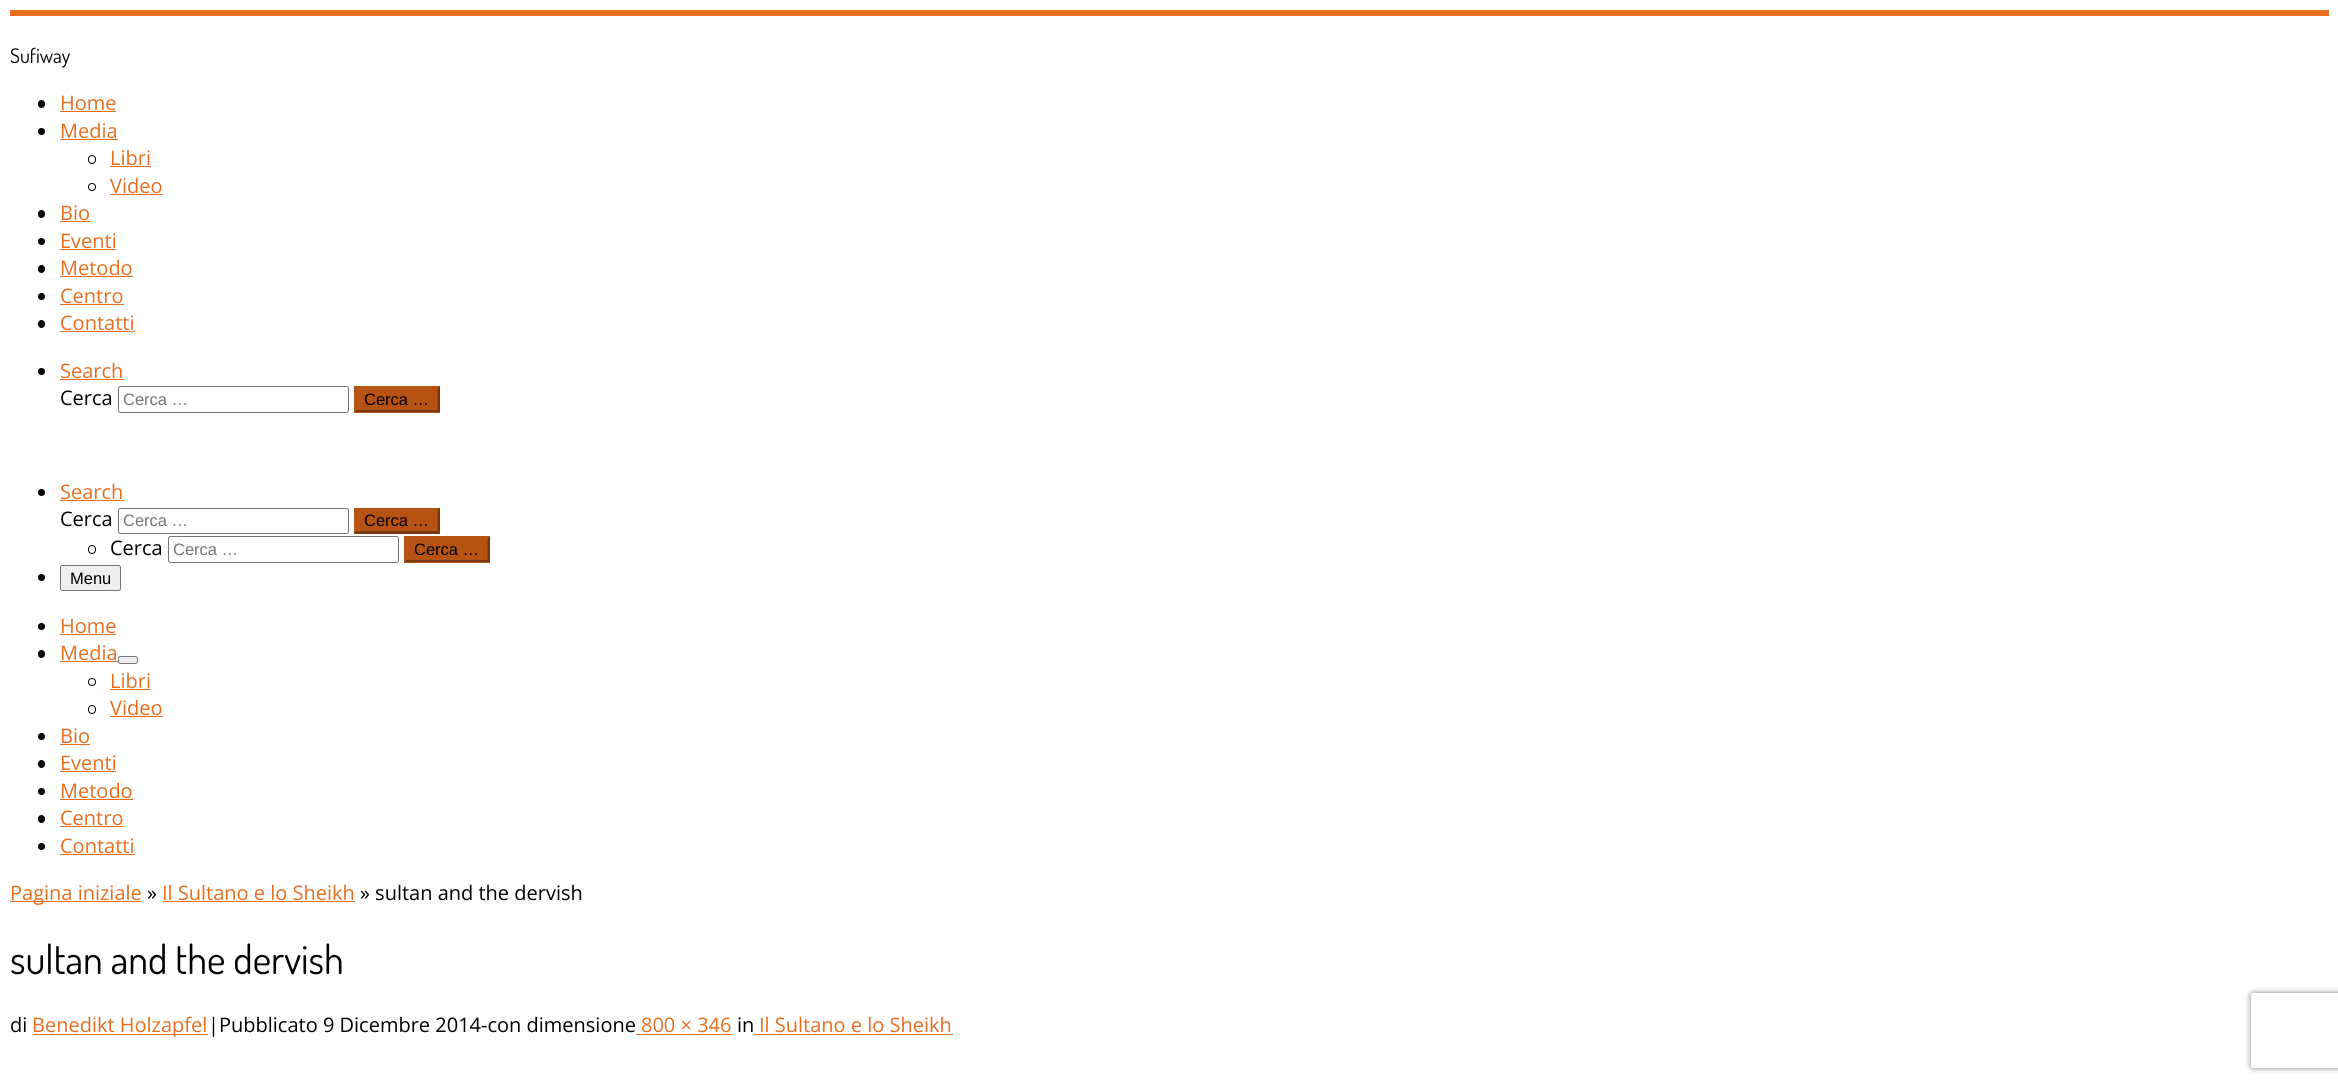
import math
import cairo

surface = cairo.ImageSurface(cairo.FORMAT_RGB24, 2338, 1084)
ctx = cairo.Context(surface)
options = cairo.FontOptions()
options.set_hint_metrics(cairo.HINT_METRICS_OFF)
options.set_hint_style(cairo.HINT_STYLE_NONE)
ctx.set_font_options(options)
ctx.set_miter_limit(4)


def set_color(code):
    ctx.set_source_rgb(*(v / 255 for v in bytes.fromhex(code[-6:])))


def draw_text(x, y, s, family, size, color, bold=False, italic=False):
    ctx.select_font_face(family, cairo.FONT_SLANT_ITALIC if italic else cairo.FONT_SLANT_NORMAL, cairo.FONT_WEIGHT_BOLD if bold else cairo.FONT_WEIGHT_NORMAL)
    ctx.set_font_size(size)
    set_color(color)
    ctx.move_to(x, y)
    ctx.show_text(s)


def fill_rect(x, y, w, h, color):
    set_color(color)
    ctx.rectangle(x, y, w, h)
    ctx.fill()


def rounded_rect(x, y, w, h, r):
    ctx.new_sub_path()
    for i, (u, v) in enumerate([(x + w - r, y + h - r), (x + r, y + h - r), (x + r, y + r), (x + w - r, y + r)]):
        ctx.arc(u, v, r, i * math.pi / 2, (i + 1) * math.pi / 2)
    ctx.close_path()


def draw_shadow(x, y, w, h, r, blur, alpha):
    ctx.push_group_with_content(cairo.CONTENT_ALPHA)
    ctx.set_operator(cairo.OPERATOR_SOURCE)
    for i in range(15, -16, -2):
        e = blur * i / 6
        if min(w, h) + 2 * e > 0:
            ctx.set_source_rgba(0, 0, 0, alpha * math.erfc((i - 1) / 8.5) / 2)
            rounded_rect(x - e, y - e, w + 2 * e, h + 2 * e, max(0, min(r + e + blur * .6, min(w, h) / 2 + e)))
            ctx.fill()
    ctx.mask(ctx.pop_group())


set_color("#ffffff")
ctx.paint()
fill_rect(10, 10, 2319, 6, "#e86e1e")
draw_text(10, 63, "Sufiway", "Dosis", 20, "#000000")
rounded_rect(38, 100, 7, 8, 3.5)
ctx.fill()
draw_text(60, 110, "Home", "Open Sans", 20, "#e86e1e")
fill_rect(60, 111, 56, 1, "#e86e1e")
set_color("#000000")
ctx.new_path()
ctx.arc(41.5, 131.5, 3.5, 0, 2 * math.pi)
ctx.fill()
draw_text(60, 138, "Media", "Open Sans", 20, "#e86e1e")
fill_rect(60, 139, 58, 1, "#e86e1e")
rounded_rect(88.5, 155.5, 7, 8, 3.5)
set_color("#000000")
ctx.set_line_width(1)
ctx.stroke()
draw_text(110, 165, "Libri", "Open Sans", 20, "#e86e1e")
fill_rect(110, 166, 41, 1, "#e86e1e")
ctx.new_path()
ctx.arc(92, 187, 3.5, 0, 2 * math.pi)
set_color("#000000")
ctx.stroke()
draw_text(110, 193, "Video", "Open Sans", 20, "#e86e1e")
fill_rect(110, 194, 53, 1, "#e86e1e")
set_color("#000000")
rounded_rect(38, 210, 7, 8, 3.5)
ctx.fill()
draw_text(60, 220, "Bio", "Open Sans", 20, "#e86e1e")
fill_rect(60, 221, 30, 1, "#e86e1e")
set_color("#000000")
ctx.new_path()
ctx.arc(41.5, 241.5, 3.5, 0, 2 * math.pi)
ctx.fill()
draw_text(60, 248, "Eventi", "Open Sans", 20, "#e86e1e")
fill_rect(60, 249, 56, 1, "#e86e1e")
set_color("#000000")
rounded_rect(38, 265, 7, 8, 3.5)
ctx.fill()
draw_text(60, 275, "Metodo", "Open Sans", 20, "#e86e1e")
fill_rect(60, 276, 73, 1, "#e86e1e")
set_color("#000000")
ctx.new_path()
ctx.arc(41.5, 296.5, 3.5, 0, 2 * math.pi)
ctx.fill()
draw_text(60, 303, "Centro", "Open Sans", 20, "#e86e1e")
fill_rect(60, 304, 64, 1, "#e86e1e")
set_color("#000000")
rounded_rect(38, 320, 7, 8, 3.5)
ctx.fill()
draw_text(60, 330, "Contatti", "Open Sans", 20, "#e86e1e")
fill_rect(60, 331, 75, 1, "#e86e1e")
set_color("#000000")
ctx.new_path()
ctx.arc(41.5, 371.5, 3.5, 0, 2 * math.pi)
ctx.fill()
draw_text(60, 378, "Search", "Open Sans", 20, "#e86e1e")
fill_rect(60, 379, 64, 1, "#e86e1e")
draw_text(60, 405, "Cerca", "Open Sans", 20, "#000000")
rounded_rect(118.5, 386.5, 230, 26, 2)
set_color("#767676")
ctx.stroke()
draw_text(123, 405, "Cerca …", "Liberation Sans", 16.5, "#757575")
fill_rect(354, 386, 86, 27, "#b65313")
set_color("#79370d")
ctx.new_path()
ctx.move_to(440, 386)
ctx.line_to(440, 412.5)
ctx.line_to(437.5, 410)
ctx.line_to(437.5, 389)
ctx.close_path()
ctx.fill()
ctx.new_path()
ctx.move_to(440, 412)
ctx.line_to(354, 412)
ctx.line_to(356, 410)
ctx.line_to(438, 410)
ctx.close_path()
ctx.fill()
set_color("#b65313")
ctx.new_path()
ctx.move_to(354, 412.5)
ctx.line_to(354, 386)
ctx.line_to(356, 389)
ctx.line_to(356, 410)
ctx.close_path()
ctx.fill()
draw_text(364, 405, "Cerca …", "Liberation Sans", 16.5, "#000000")
ctx.new_path()
ctx.arc(41.5, 492.5, 3.5, 0, 2 * math.pi)
ctx.fill()
draw_text(60, 499, "Search", "Open Sans", 20, "#e86e1e")
fill_rect(60, 500, 64, 1, "#e86e1e")
draw_text(60, 526, "Cerca", "Open Sans", 20, "#000000")
rounded_rect(118.5, 508.5, 230, 25, 2)
set_color("#767676")
ctx.stroke()
draw_text(123, 526, "Cerca …", "Liberation Sans", 16.5, "#757575")
fill_rect(354, 508, 86, 26, "#b65313")
set_color("#79370d")
ctx.new_path()
ctx.move_to(440, 507.5)
ctx.line_to(440, 534)
ctx.line_to(437.5, 531)
ctx.line_to(437.5, 510)
ctx.close_path()
ctx.fill()
ctx.new_path()
ctx.move_to(440, 534)
ctx.line_to(354, 534)
ctx.line_to(356, 531)
ctx.line_to(438, 531)
ctx.close_path()
ctx.fill()
set_color("#b65313")
ctx.new_path()
ctx.move_to(354, 534)
ctx.line_to(354, 507.5)
ctx.line_to(356, 510)
ctx.line_to(356, 531)
ctx.close_path()
ctx.fill()
draw_text(364, 526, "Cerca …", "Liberation Sans", 16.5, "#000000")
rounded_rect(88.5, 545.5, 7, 8, 3.5)
ctx.stroke()
draw_text(110, 555, "Cerca", "Open Sans", 20, "#000000")
rounded_rect(168.5, 536.5, 230, 26, 2)
set_color("#767676")
ctx.stroke()
draw_text(173, 555, "Cerca …", "Liberation Sans", 16.5, "#757575")
fill_rect(404, 536, 86, 27, "#b65313")
set_color("#79370d")
ctx.new_path()
ctx.move_to(490, 536)
ctx.line_to(490, 562.5)
ctx.line_to(487.5, 560)
ctx.line_to(487.5, 539)
ctx.close_path()
ctx.fill()
ctx.new_path()
ctx.move_to(490, 562)
ctx.line_to(404, 562)
ctx.line_to(406, 560)
ctx.line_to(488, 560)
ctx.close_path()
ctx.fill()
set_color("#b65313")
ctx.new_path()
ctx.move_to(404, 562.5)
ctx.line_to(404, 536)
ctx.line_to(406, 539)
ctx.line_to(406, 560)
ctx.close_path()
ctx.fill()
draw_text(414, 555, "Cerca …", "Liberation Sans", 16.5, "#000000")
ctx.new_path()
ctx.arc(41.5, 577.5, 3.5, 0, 2 * math.pi)
ctx.fill()
set_color("#efefef")
rounded_rect(60.5, 565.5, 60, 25, 2)
ctx.fill_preserve()
set_color("#767676")
ctx.stroke()
draw_text(70, 584, "Menu", "Liberation Sans", 16.5, "#000000")
ctx.new_path()
ctx.arc(41.5, 626.5, 3.5, 0, 2 * math.pi)
ctx.fill()
draw_text(60, 633, "Home", "Open Sans", 20, "#e86e1e")
fill_rect(60, 634, 56, 1, "#e86e1e")
set_color("#000000")
rounded_rect(38, 650, 7, 8, 3.5)
ctx.fill()
draw_text(60, 660, "Media", "Open Sans", 20, "#e86e1e")
fill_rect(60, 661, 58, 1, "#e86e1e")
set_color("#efefef")
rounded_rect(118.5, 656.5, 19, 7, 2)
ctx.fill_preserve()
set_color("#767676")
ctx.stroke()
ctx.arc(92, 682, 3.5, 0, 2 * math.pi)
set_color("#000000")
ctx.stroke()
draw_text(110, 688, "Libri", "Open Sans", 20, "#e86e1e")
fill_rect(110, 689, 41, 1, "#e86e1e")
rounded_rect(88.5, 705.5, 7, 8, 3.5)
set_color("#000000")
ctx.stroke()
draw_text(110, 715, "Video", "Open Sans", 20, "#e86e1e")
fill_rect(110, 716, 53, 1, "#e86e1e")
set_color("#000000")
ctx.new_path()
ctx.arc(41.5, 736.5, 3.5, 0, 2 * math.pi)
ctx.fill()
draw_text(60, 743, "Bio", "Open Sans", 20, "#e86e1e")
fill_rect(60, 744, 30, 1, "#e86e1e")
set_color("#000000")
rounded_rect(38, 760, 7, 8, 3.5)
ctx.fill()
draw_text(60, 770, "Eventi", "Open Sans", 20, "#e86e1e")
fill_rect(60, 771, 56, 1, "#e86e1e")
set_color("#000000")
ctx.new_path()
ctx.arc(41.5, 791.5, 3.5, 0, 2 * math.pi)
ctx.fill()
draw_text(60, 798, "Metodo", "Open Sans", 20, "#e86e1e")
fill_rect(60, 799, 73, 1, "#e86e1e")
set_color("#000000")
rounded_rect(38, 815, 7, 8, 3.5)
ctx.fill()
draw_text(60, 825, "Centro", "Open Sans", 20, "#e86e1e")
fill_rect(60, 826, 64, 1, "#e86e1e")
set_color("#000000")
ctx.new_path()
ctx.arc(41.5, 846.5, 3.5, 0, 2 * math.pi)
ctx.fill()
draw_text(60, 853, "Contatti", "Open Sans", 20, "#e86e1e")
fill_rect(60, 854, 75, 1, "#e86e1e")
fill_rect(10, 901, 131, 1, "#e86e1e")
draw_text(10, 900, "Pagina iniziale", "Open Sans", 20, "#e86e1e")
draw_text(147, 900, "»", "Open Sans", 20, "#000000")
draw_text(162, 900, "Il Sultano e lo Sheikh", "Open Sans", 20, "#e86e1e")
fill_rect(163, 901, 192, 1, "#e86e1e")
draw_text(360, 900, "» sultan and the dervish", "Open Sans", 20, "#000000")
draw_text(10, 974, "sultan and the dervish", "Dosis", 40, "#000000")
draw_text(10, 1032, "di", "Open Sans", 20, "#000000")
fill_rect(33, 1034, 175, 1, "#e86e1e")
draw_text(32, 1032, "Benedikt Holzapfel", "Open Sans", 20, "#e86e1e")
draw_text(208, 1032, "|Pubblicato 9 Dicembre 2014-con dimensione", "Open Sans", 20, "#000000")
fill_rect(636, 1034, 95, 1, "#e86e1e")
draw_text(641, 1032, "800 × 346", "Open Sans", 20, "#e86e1e")
draw_text(737, 1032, "in", "Open Sans", 20, "#000000")
draw_text(759, 1032, "Il Sultano e lo Sheikh", "Open Sans", 20, "#e86e1e")
fill_rect(754, 1034, 199, 1, "#e86e1e")
ctx.save()
ctx.set_fill_rule(cairo.FILL_RULE_EVEN_ODD)
ctx.new_path()
ctx.move_to(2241, 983)
ctx.line_to(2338, 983)
ctx.line_to(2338, 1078)
ctx.line_to(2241, 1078)
ctx.close_path()
ctx.move_to(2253.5, 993)
ctx.line_to(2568.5, 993)
ctx.curve_to(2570, 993, 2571, 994, 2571, 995.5)
ctx.line_to(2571, 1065.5)
ctx.curve_to(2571, 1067, 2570, 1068, 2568.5, 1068)
ctx.line_to(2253.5, 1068)
ctx.curve_to(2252, 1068, 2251, 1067, 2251, 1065.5)
ctx.line_to(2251, 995.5)
ctx.curve_to(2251, 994, 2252, 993, 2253.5, 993)
ctx.close_path()
ctx.clip()
set_color("#808080")
draw_shadow(2251, 993, 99, 75, 2.5, 3, 1)
ctx.restore()
surface.write_to_png("output.png")
